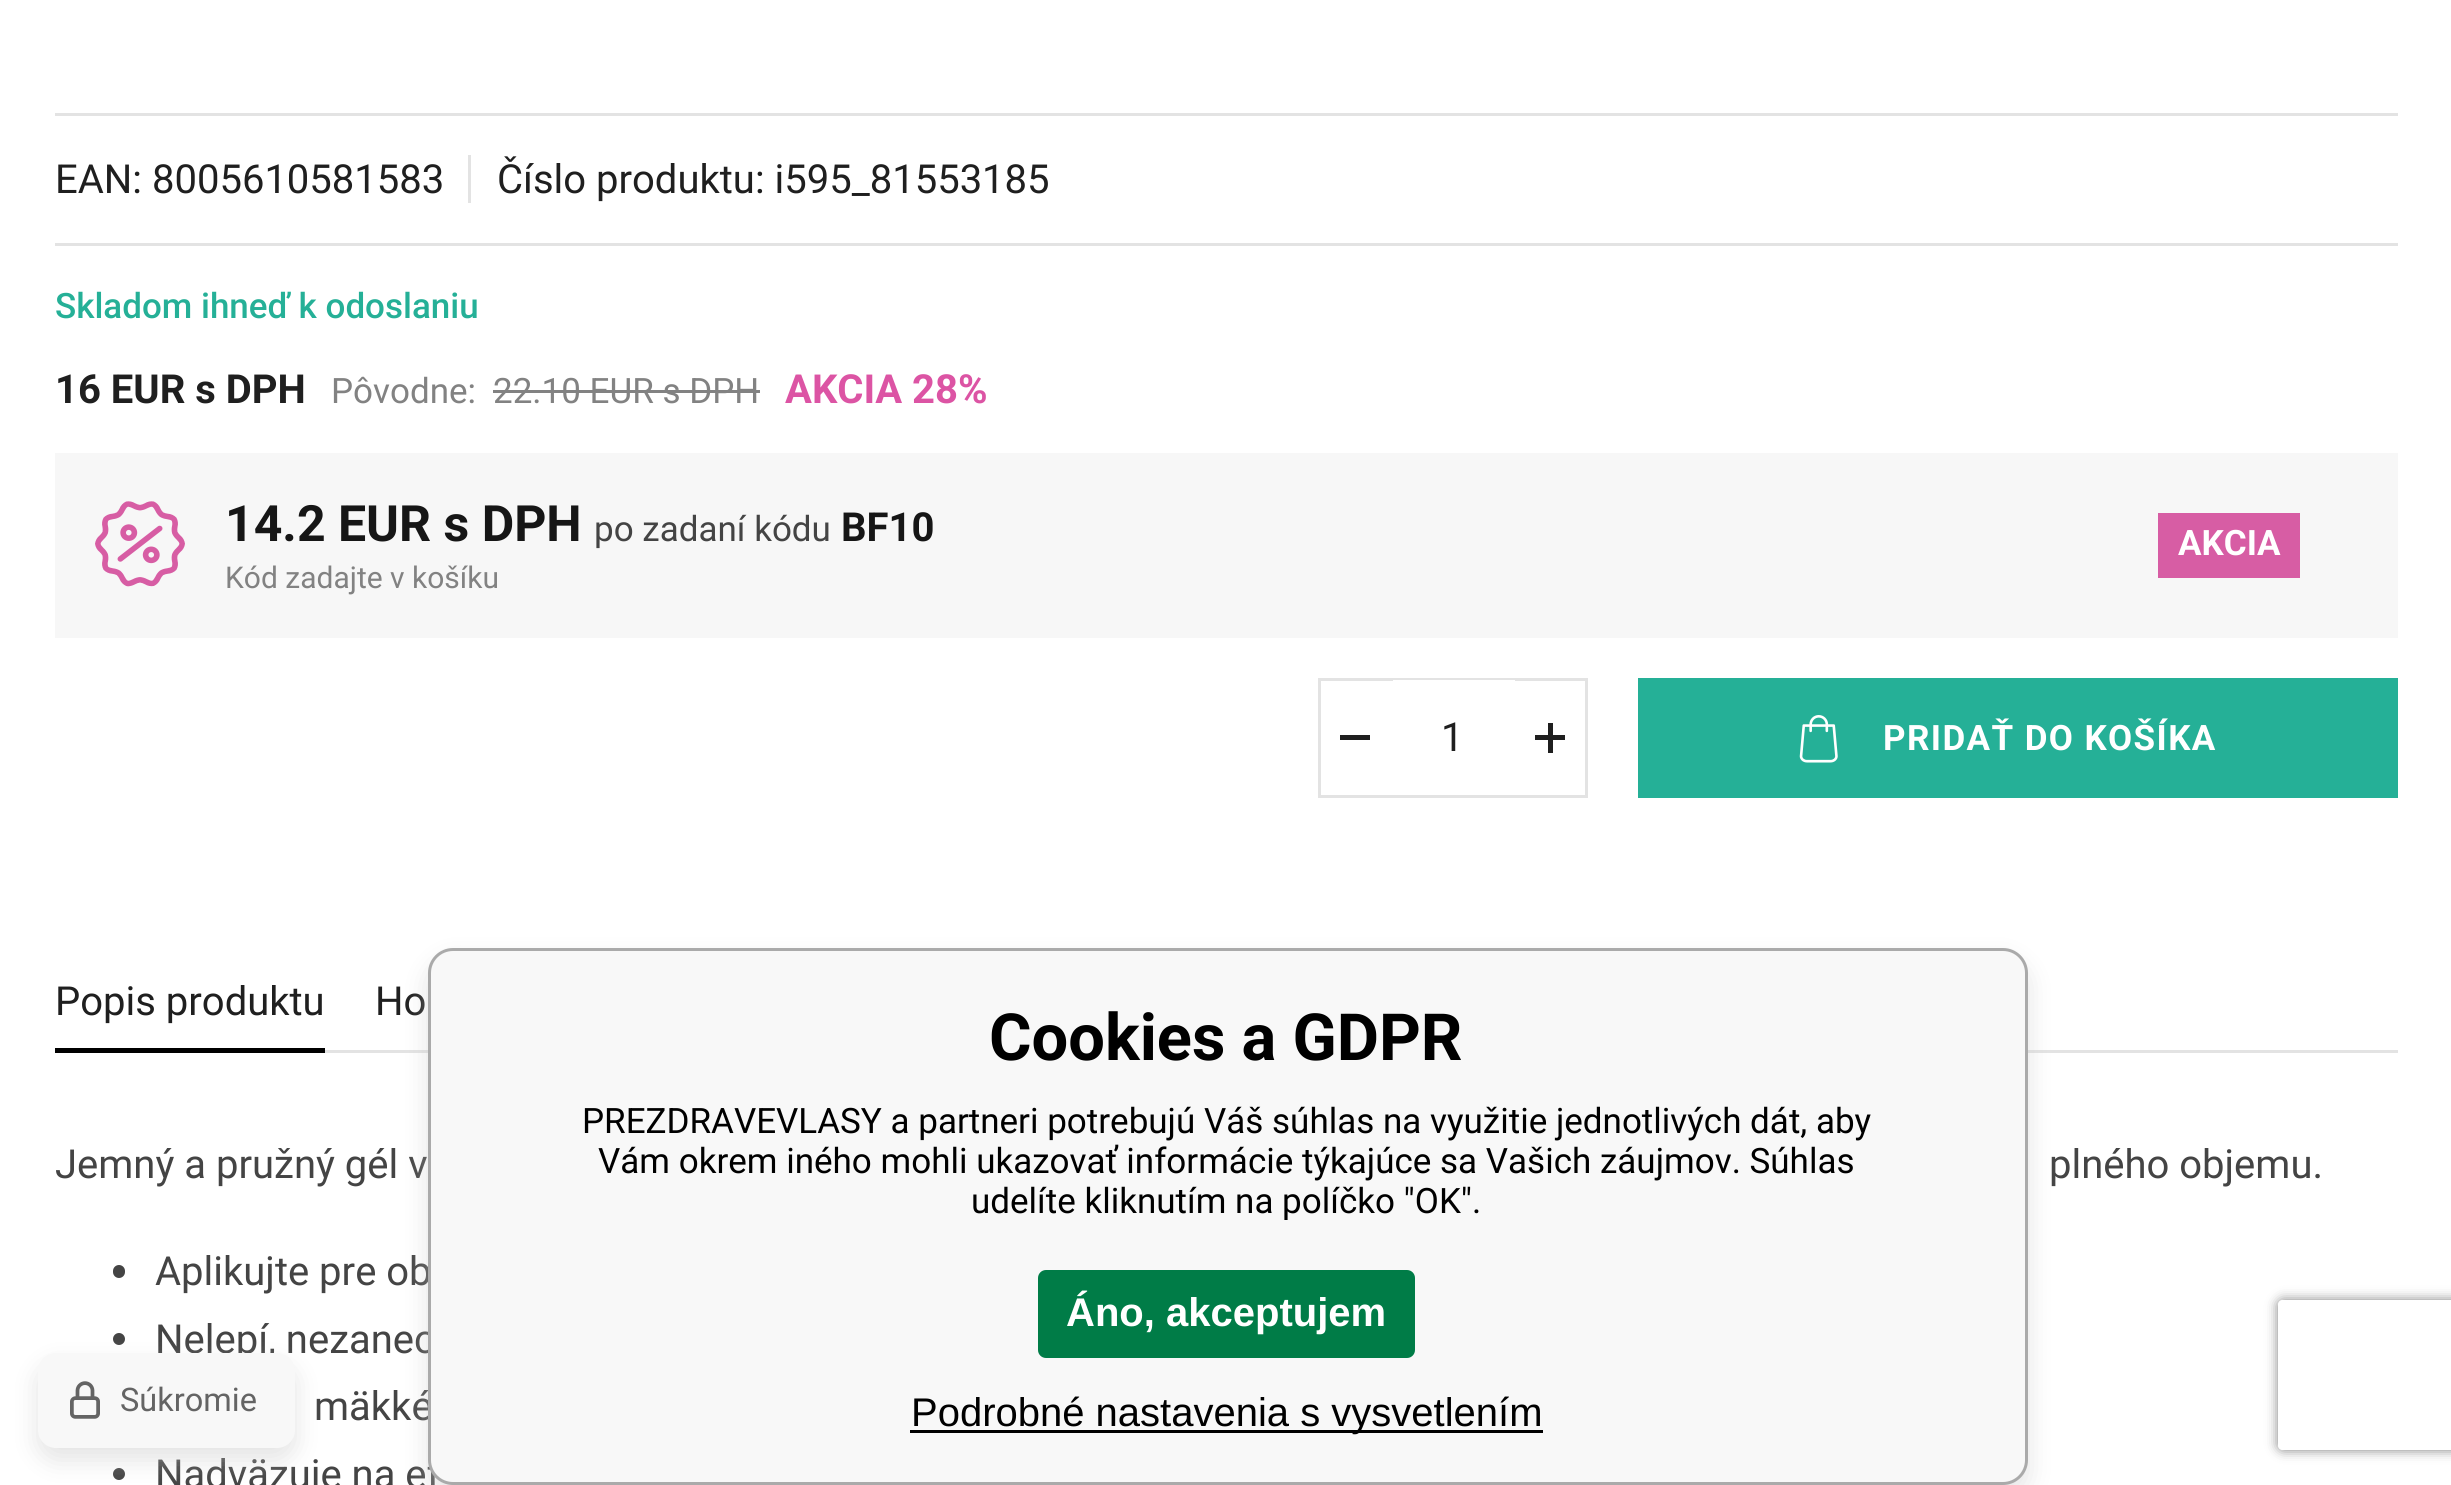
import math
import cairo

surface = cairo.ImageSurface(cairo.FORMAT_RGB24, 2451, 1485)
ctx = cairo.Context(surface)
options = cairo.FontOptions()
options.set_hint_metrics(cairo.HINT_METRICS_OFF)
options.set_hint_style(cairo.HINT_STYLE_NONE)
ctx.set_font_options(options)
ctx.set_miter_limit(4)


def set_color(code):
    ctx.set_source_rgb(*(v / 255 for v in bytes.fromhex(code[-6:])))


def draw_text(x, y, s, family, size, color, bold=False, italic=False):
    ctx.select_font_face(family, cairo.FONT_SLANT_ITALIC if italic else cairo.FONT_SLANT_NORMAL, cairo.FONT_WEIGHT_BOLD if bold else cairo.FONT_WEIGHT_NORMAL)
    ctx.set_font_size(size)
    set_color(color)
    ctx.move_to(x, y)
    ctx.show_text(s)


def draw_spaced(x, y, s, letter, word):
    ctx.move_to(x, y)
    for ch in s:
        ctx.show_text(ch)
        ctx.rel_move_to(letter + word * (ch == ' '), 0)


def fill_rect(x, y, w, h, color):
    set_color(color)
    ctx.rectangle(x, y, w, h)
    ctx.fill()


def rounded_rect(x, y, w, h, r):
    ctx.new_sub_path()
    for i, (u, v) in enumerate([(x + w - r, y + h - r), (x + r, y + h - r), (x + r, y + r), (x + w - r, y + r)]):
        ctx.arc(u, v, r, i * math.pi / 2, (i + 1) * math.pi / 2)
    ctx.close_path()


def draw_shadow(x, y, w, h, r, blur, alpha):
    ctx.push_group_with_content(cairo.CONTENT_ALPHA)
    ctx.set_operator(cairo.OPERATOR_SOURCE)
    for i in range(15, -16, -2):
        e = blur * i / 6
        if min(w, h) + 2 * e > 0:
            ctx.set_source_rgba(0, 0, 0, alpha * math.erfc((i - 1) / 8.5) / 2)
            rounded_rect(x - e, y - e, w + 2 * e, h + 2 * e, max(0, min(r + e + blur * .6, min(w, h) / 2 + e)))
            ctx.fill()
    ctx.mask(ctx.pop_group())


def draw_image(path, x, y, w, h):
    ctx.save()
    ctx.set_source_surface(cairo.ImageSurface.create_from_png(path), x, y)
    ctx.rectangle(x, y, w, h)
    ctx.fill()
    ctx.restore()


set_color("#ffffff")
ctx.paint()
fill_rect(55, 113, 2343, 3, "#e3e3e3")
fill_rect(55, 243, 2343, 3, "#e3e3e3")
draw_text(55, 193, "EAN: 8005610581583", "Roboto", 40, "#1f1f1f")
fill_rect(468, 155, 3, 48, "#e3e3e3")
draw_text(497, 193, "Číslo produktu: i595_81553185", "Roboto", 40, "#1f1f1f")
draw_text(55, 318, "Skladom ihneď k odoslaniu", "Roboto Medium", 35, "#25b097")
draw_text(55, 403, "16 EUR s DPH", "Roboto", 40, "#1f1f1f", bold=True)
draw_text(331, 403, "Pôvodne:", "Roboto", 35, "#828282")
draw_text(493, 403, "22.10 EUR s DPH", "Roboto", 35, "#828282")
fill_rect(493, 390, 267, 3, "#828282")
draw_text(785, 403, "AKCIA 28%", "Roboto", 40, "#dc54a4", bold=True)
fill_rect(55, 453, 2343, 185, "#f7f7f7")
draw_image("assets/img1.png", 95, 501, 90, 86)
draw_text(225, 541, "14.2 EUR s DPH", "Roboto", 50, "#161616", bold=True)
draw_text(594, 541, "po zadaní kódu", "Roboto", 35, "#444444")
draw_text(841, 541, "BF10", "Roboto", 40, "#161616", bold=True)
fill_rect(2158, 513, 142, 65, "#d75da4")
draw_text(2178, 555, "AKCIA", "Roboto", 35, "#ffffff", bold=True)
draw_text(225, 588, "Kód zadajte v košíku", "Roboto", 30, "#828282")
ctx.rectangle(1319.5, 679.5, 267, 117)
set_color("#e3e3e3")
ctx.set_line_width(3)
ctx.stroke()
fill_rect(1340, 735, 30, 5, "#1f1f1f")
fill_rect(1393, 680, 122, 1, "#ffffff")
draw_text(1441, 751, "1", "Roboto", 40, "#1f1f1f")
fill_rect(1535, 735, 30, 5, "#1f1f1f")
fill_rect(1548, 723, 5, 30, "#1f1f1f")
fill_rect(1638, 678, 760, 120, "#25b097")
draw_image("assets/img2.png", 1799, 715, 39, 48)
ctx.select_font_face("Roboto", cairo.FONT_SLANT_NORMAL, cairo.FONT_WEIGHT_BOLD)
ctx.set_font_size(35)
set_color("#ffffff")
draw_spaced(1883, 750, "PRIDAŤ DO KOŠÍKA", 1.4, 0)
fill_rect(325, 1050, 2073, 3, "#e3e3e3")
draw_text(55, 1015, "Popis produktu", "Roboto", 40, "#1f1f1f")
fill_rect(55, 1048, 270, 5, "#000000")
draw_text(375, 1015, "Ho", "Roboto", 40, "#1f1f1f")
draw_text(55, 1178, "Jemný a pružný gél v", "Roboto", 40, "#444444")
draw_text(2049, 1178, "plného objemu.", "Roboto", 40, "#444444")
rounded_rect(113, 1265, 12, 13, 6)
ctx.fill()
draw_text(155, 1285, "Aplikujte pre ob", "Roboto", 40, "#444444")
ctx.new_path()
ctx.arc(119, 1339, 6, 0, 2 * math.pi)
ctx.fill()
draw_text(155, 1353, "Nelepí, nezanec", "Roboto", 40, "#444444")
draw_text(314, 1420, "mäkké", "Roboto", 40, "#444444")
ctx.new_path()
ctx.arc(119, 1474, 6, 0, 2 * math.pi)
ctx.fill()
draw_text(155, 1488, "Nadväzuje na ef", "Roboto", 40, "#444444")
set_color("#c8c8c8")
draw_shadow(38, 1365, 257, 95, 18, 12.5, 0.5)
set_color("#f8f8f8")
rounded_rect(38, 1353, 257, 95, 18)
ctx.fill()
draw_image("assets/img3.png", 70, 1381, 30, 38)
draw_text(120, 1411, "Súkromie", "Roboto", 32.5, "#646464")
set_color("#c8c8c8")
draw_shadow(428, 960, 1600, 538, 25, 12.5, 0.5)
set_color("#f8f8f8")
rounded_rect(429.5, 949.5, 1597, 534, 23.5)
ctx.fill_preserve()
set_color("#aaaaaa")
ctx.stroke()
draw_text(989, 1060, "Cookies a GDPR", "Roboto", 65, "#000000", bold=True)
draw_text(582, 1133, "PREZDRAVEVLASY a partneri potrebujú Váš súhlas na využitie jednotlivých dát, aby", "Roboto", 35, "#000000")
draw_text(598, 1173, "Vám okrem iného mohli ukazovať informácie týkajúce sa Vašich záujmov. Súhlas", "Roboto", 35, "#000000")
ctx.save()
ctx.rectangle(555, 1100, 1345, 120)
ctx.clip()
draw_text(971, 1213, "udelíte kliknutím na políčko \"OK\".", "Roboto", 35, "#000000")
ctx.restore()
set_color("#007c47")
rounded_rect(1039.5, 1271.5, 374, 85, 6.5)
ctx.fill_preserve()
ctx.stroke()
draw_text(1066, 1326, "Áno, akceptujem", "Liberation Sans", 40, "#ffffff", bold=True)
fill_rect(910, 1430, 633, 3, "#000000")
draw_text(911, 1426, "Podrobné nastavenia s vysvetlením", "Liberation Sans", 40, "#000000")
ctx.save()
ctx.set_fill_rule(cairo.FILL_RULE_EVEN_ODD)
ctx.new_path()
ctx.move_to(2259, 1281)
ctx.line_to(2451, 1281)
ctx.line_to(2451, 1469)
ctx.line_to(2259, 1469)
ctx.close_path()
ctx.move_to(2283, 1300)
ctx.line_to(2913, 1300)
ctx.curve_to(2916, 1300, 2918, 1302, 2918, 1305)
ctx.line_to(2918, 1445)
ctx.curve_to(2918, 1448, 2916, 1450, 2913, 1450)
ctx.line_to(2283, 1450)
ctx.curve_to(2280, 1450, 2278, 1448, 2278, 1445)
ctx.line_to(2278, 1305)
ctx.curve_to(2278, 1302, 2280, 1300, 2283, 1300)
ctx.close_path()
ctx.clip()
set_color("#808080")
draw_shadow(2278, 1300, 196, 150, 5, 6, 1)
ctx.restore()
surface.write_to_png("output.png")
